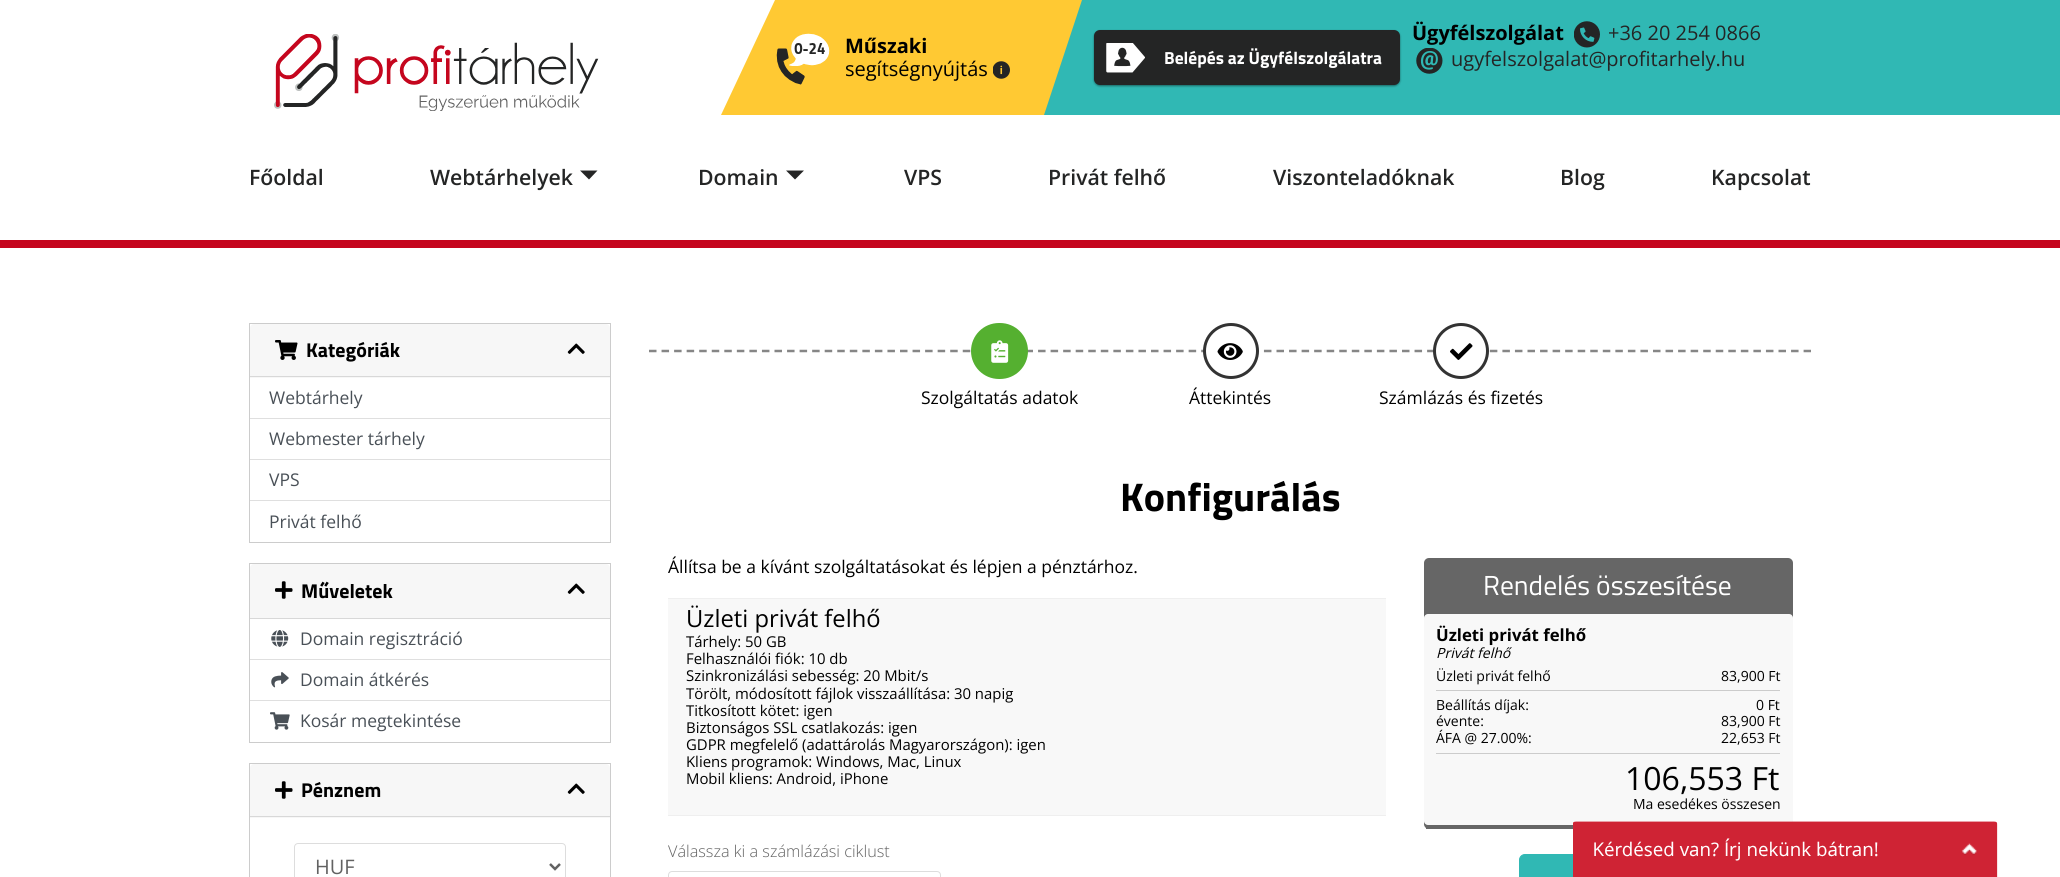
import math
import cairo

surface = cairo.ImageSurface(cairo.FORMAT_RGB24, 2060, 877)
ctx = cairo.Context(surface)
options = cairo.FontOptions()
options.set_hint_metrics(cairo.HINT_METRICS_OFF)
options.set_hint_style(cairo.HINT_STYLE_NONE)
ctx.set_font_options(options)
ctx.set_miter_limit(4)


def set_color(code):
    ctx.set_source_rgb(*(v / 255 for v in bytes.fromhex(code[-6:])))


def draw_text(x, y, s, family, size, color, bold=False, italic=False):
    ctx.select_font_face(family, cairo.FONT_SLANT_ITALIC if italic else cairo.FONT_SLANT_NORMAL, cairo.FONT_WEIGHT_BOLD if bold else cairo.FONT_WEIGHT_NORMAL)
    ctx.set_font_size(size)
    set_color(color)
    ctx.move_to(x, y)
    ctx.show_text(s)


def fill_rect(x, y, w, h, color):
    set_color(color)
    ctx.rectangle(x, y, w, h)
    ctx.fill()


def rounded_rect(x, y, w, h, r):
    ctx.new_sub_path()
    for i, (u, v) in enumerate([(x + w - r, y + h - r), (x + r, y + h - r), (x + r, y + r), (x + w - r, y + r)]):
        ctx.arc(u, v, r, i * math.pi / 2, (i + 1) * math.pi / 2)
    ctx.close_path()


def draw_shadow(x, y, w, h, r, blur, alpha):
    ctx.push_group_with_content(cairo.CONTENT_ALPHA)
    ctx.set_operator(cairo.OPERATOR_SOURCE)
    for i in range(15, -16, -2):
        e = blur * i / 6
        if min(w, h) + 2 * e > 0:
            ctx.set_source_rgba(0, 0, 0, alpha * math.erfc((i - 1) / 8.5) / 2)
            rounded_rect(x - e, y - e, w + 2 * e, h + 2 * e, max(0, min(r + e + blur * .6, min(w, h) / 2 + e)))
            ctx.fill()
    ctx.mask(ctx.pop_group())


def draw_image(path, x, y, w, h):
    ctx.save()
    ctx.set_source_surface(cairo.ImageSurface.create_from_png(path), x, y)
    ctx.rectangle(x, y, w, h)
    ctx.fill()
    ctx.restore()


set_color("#ffffff")
ctx.paint()
gradient = cairo.LinearGradient(0, 58, 2060, 57)
gradient.add_color_stop_rgba(0, 1, 1, 1, 1)
gradient.add_color_stop_rgba(0.43, 1, 1, 1, 1)
gradient.add_color_stop_rgba(0.43, 1, 0.788, 0.2, 1)
gradient.add_color_stop_rgba(0.69, 1, 0.788, 0.2, 1)
gradient.add_color_stop_rgba(0.69, 1, 1, 1, 1)
gradient.add_color_stop_rgba(0.69, 0.188, 0.722, 0.706, 1)
ctx.set_source(gradient)
ctx.rectangle(886, 0, 1174, 115)
ctx.fill()
draw_image("assets/img1.png", 274, 34, 325, 77)
set_color("#ffc933")
ctx.new_path()
ctx.move_to(775, 0)
ctx.line_to(721, 115)
ctx.line_to(1081, 115)
ctx.line_to(1081, 0)
ctx.close_path()
ctx.fill()
draw_image("assets/img2.png", 776, 33, 54, 52)
draw_text(845, 53, "Műszaki", "Open Sans", 20, "#000000", bold=True)
draw_text(845, 76, "segítségnyújtás", "Open Sans", 20, "#000000")
draw_image("assets/img3.png", 993, 61, 17, 18)
set_color("#30b8b4")
ctx.new_path()
ctx.move_to(1082, 0)
ctx.line_to(1044, 115)
ctx.line_to(1811, 115)
ctx.line_to(1811, 0)
ctx.close_path()
ctx.fill()
set_color("#000000")
draw_shadow(1094, 31, 306, 55, 6, 1, 0.45)
set_color("#242525")
rounded_rect(1094, 30, 306, 55, 6)
ctx.fill()
draw_image("assets/img4.png", 1106, 43, 39, 30)
draw_text(1164, 64, "Belépés az Ügyfélszolgálatra", "Titillium Web", 17.5, "#ffffff", bold=True)
draw_text(1412, 40, "Ügyfélszolgálat", "Open Sans", 20, "#000000", bold=True)
draw_image("assets/img5.png", 1574, 21, 26, 27)
draw_text(1608, 40, "+36 20 254 0866", "Open Sans", 20, "#242525")
draw_image("assets/img6.png", 1416, 48, 27, 26)
draw_text(1451, 66, "ugyfelszolgalat@profitarhely.hu", "Open Sans", 20, "#242525")
fill_rect(0, 240, 2060, 8, "#c5061e")
draw_text(249, 185, "Főoldal", "Open Sans SemiBold", 21.25, "#242525")
draw_text(430, 185, "Webtárhelyek", "Open Sans SemiBold", 21.25, "#242525")
ctx.new_path()
ctx.move_to(580, 170.5)
ctx.line_to(597.5, 170.5)
ctx.line_to(589, 179.5)
ctx.close_path()
ctx.fill()
draw_text(698, 185, "Domain", "Open Sans SemiBold", 21.25, "#242525")
ctx.new_path()
ctx.move_to(786, 170.5)
ctx.line_to(804, 170.5)
ctx.line_to(795, 179.5)
ctx.close_path()
ctx.fill()
draw_text(904, 185, "VPS", "Open Sans SemiBold", 21.25, "#242525")
draw_text(1048, 185, "Privát felhő", "Open Sans SemiBold", 21.25, "#242525")
draw_text(1273, 185, "Viszonteladóknak", "Open Sans SemiBold", 21.25, "#242525")
draw_text(1560, 185, "Blog", "Open Sans SemiBold", 21.25, "#242525")
draw_text(1711, 185, "Kapcsolat", "Open Sans SemiBold", 21.25, "#242525")
ctx.rectangle(249.5, 323.5, 361, 219)
set_color("#cccccc")
ctx.set_line_width(1)
ctx.stroke()
set_color("#f7f7f7")
ctx.new_path()
ctx.move_to(254, 324)
ctx.line_to(606, 324)
ctx.curve_to(608, 324, 610, 326, 610, 328)
ctx.line_to(610, 378)
ctx.line_to(250, 378)
ctx.line_to(250, 328)
ctx.curve_to(250, 326, 252, 324, 254, 324)
ctx.close_path()
ctx.fill()
fill_rect(250, 376, 360, 1, "#d8d8d8")
draw_image("assets/img7.png", 275, 340, 23, 20)
draw_text(306, 357, "Kategóriák", "Titillium Web", 20, "#000000", bold=True)
draw_image("assets/img8.png", 567, 343, 18, 11)
fill_rect(250, 418, 360, 1, "#dfdfdf")
draw_text(269, 404, "Webtárhely", "Open Sans", 17.5, "#495057")
fill_rect(250, 459, 360, 1, "#dfdfdf")
draw_text(269, 445, "Webmester tárhely", "Open Sans", 17.5, "#495057")
fill_rect(250, 500, 360, 1, "#dfdfdf")
draw_text(269, 486, "VPS", "Open Sans", 17.5, "#495057")
draw_text(269, 528, "Privát felhő", "Open Sans", 17.5, "#495057")
ctx.rectangle(249.5, 563.5, 361, 179)
set_color("#cccccc")
ctx.stroke()
set_color("#f7f7f7")
ctx.new_path()
ctx.move_to(254, 564)
ctx.line_to(606, 564)
ctx.curve_to(608, 564, 610, 566, 610, 568)
ctx.line_to(610, 619)
ctx.line_to(250, 619)
ctx.line_to(250, 568)
ctx.curve_to(250, 566, 252, 564, 254, 564)
ctx.close_path()
ctx.fill()
fill_rect(250, 618, 360, 1, "#d8d8d8")
draw_image("assets/img9.png", 275, 581, 18, 18)
draw_text(301, 598, "Műveletek", "Titillium Web", 20, "#000000", bold=True)
draw_image("assets/img8.png", 567, 583, 18, 11)
fill_rect(250, 659, 360, 1, "#dfdfdf")
draw_image("assets/img10.png", 271, 630, 18, 17)
draw_text(300, 645, "Domain regisztráció", "Open Sans", 17.5, "#495057")
fill_rect(250, 700, 360, 1, "#dfdfdf")
draw_image("assets/img11.png", 271, 672, 18, 16)
draw_text(300, 686, "Domain átkérés", "Open Sans", 17.5, "#495057")
draw_image("assets/img12.png", 270, 712, 20, 18)
draw_text(300, 727, "Kosár megtekintése", "Open Sans", 17.5, "#495057")
ctx.rectangle(249.5, 763.5, 361, 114)
set_color("#cccccc")
ctx.stroke()
set_color("#f7f7f7")
ctx.new_path()
ctx.move_to(254, 764)
ctx.line_to(606, 764)
ctx.curve_to(608, 764, 610, 766, 610, 768)
ctx.line_to(610, 818)
ctx.line_to(250, 818)
ctx.line_to(250, 768)
ctx.curve_to(250, 766, 252, 764, 254, 764)
ctx.close_path()
ctx.fill()
fill_rect(250, 816, 360, 1, "#d8d8d8")
draw_image("assets/img9.png", 275, 781, 18, 18)
draw_text(301, 797, "Pénznem", "Titillium Web", 20, "#000000", bold=True)
draw_image("assets/img8.png", 567, 783, 18, 11)
rounded_rect(294.5, 843.5, 271, 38, 3.5)
set_color("#dddddd")
ctx.stroke()
ctx.new_path()
ctx.move_to(550, 864)
ctx.line_to(555, 869)
ctx.line_to(560, 864)
set_color("#626262")
ctx.set_line_width(2.5)
ctx.stroke()
draw_text(315, 874, "HUF", "Open Sans", 20, "#626262")
ctx.new_path()
ctx.move_to(649, 351)
ctx.line_to(1811, 351)
set_color("#868686")
ctx.set_dash([7.5, 5.05])
ctx.stroke()
set_color("#55b030")
rounded_rect(972.5, 324.5, 54, 53, 26.5)
ctx.fill_preserve()
ctx.set_line_width(3)
ctx.set_dash([])
ctx.stroke()
draw_image("assets/img13.png", 991, 340, 18, 23)
draw_text(921, 404, "Szolgáltatás adatok", "Open Sans", 17.5, "#000000")
set_color("#ffffff")
ctx.new_path()
ctx.arc(1231, 351, 26.5, 0, 2 * math.pi)
ctx.fill_preserve()
set_color("#333333")
ctx.stroke()
draw_image("assets/img14.png", 1217, 343, 26, 17)
draw_text(1189, 404, "Áttekintés", "Open Sans", 17.5, "#000000")
set_color("#ffffff")
ctx.new_path()
ctx.arc(1461, 351, 26.5, 0, 2 * math.pi)
ctx.fill_preserve()
set_color("#333333")
ctx.stroke()
draw_image("assets/img15.png", 1450, 343, 23, 17)
draw_text(1379, 404, "Számlázás és fizetés", "Open Sans", 17.5, "#000000")
draw_text(1120, 511, "Konfigurálás", "Titillium Web", 40, "#000000", bold=True)
draw_text(668, 573, "Állítsa be a kívánt szolgáltatásokat és lépjen a pénztárhoz.", "Open Sans", 17.5, "#000000")
fill_rect(668, 599, 718, 216, "#f8f8f8")
fill_rect(668, 598, 718, 1, "#efefef")
fill_rect(668, 815, 718, 1, "#efefef")
draw_text(686, 627, "Üzleti privát felhő", "Open Sans", 23.75, "#000000")
draw_text(686, 647, "Tárhely: 50 GB", "Open Sans", 14.9, "#000000")
draw_text(686, 664, "Felhasználói fiók: 10 db", "Open Sans", 14.9, "#000000")
draw_text(686, 681, "Szinkronizálási sebesség: 20 Mbit/s", "Open Sans", 14.9, "#000000")
draw_text(686, 699, "Törölt, módosított fájlok visszaállítása: 30 napig", "Open Sans", 14.9, "#000000")
draw_text(686, 716, "Titkosított kötet: igen", "Open Sans", 14.9, "#000000")
draw_text(686, 733, "Biztonságos SSL csatlakozás: igen", "Open Sans", 14.9, "#000000")
draw_text(686, 750, "GDPR megfelelő (adattárolás Magyarországon): igen", "Open Sans", 14.9, "#000000")
draw_text(686, 767, "Kliens programok: Windows, Mac, Linux", "Open Sans", 14.9, "#000000")
draw_text(686, 784, "Mobil kliens: Android, iPhone", "Open Sans", 14.9, "#000000")
draw_text(668, 857, "Válassza ki a számlázási ciklust", "Open Sans Light", 16.25, "#626262")
rounded_rect(668.5, 871.5, 272, 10, 3.5)
set_color("#dddddd")
ctx.set_line_width(1)
ctx.stroke()
set_color("#666666")
rounded_rect(1424, 558, 369, 271, 5)
ctx.fill()
fill_rect(1426, 828, 3, 1, "#666666")
draw_text(1483, 595, "Rendelés összesítése", "Titillium Web", 27.5, "#ffffff")
set_color("#f8f8f8")
rounded_rect(1424, 614, 369, 211, 4)
ctx.fill()
draw_text(1436, 641, "Üzleti privát felhő", "Open Sans", 16.75, "#000000", bold=True)
draw_text(1436, 658, "Privát felhő", "Open Sans", 14, "#000000", italic=True)
draw_text(1436, 681, "Üzleti privát felhő", "Open Sans", 14, "#000000")
draw_text(1721, 681, "83,900 Ft", "Open Sans", 14, "#000000")
fill_rect(1436, 690, 344, 1, "#cccccc")
fill_rect(1436, 753, 344, 1, "#cccccc")
draw_text(1436, 710, "Beállítás díjak:", "Open Sans", 14, "#000000")
draw_text(1756, 710, "0 Ft", "Open Sans", 14, "#000000")
draw_text(1436, 726, "évente:", "Open Sans", 14, "#000000")
draw_text(1721, 726, "83,900 Ft", "Open Sans", 14, "#000000")
draw_text(1436, 743, "ÁFA @ 27.00%:", "Open Sans", 14, "#000000")
draw_text(1721, 743, "22,653 Ft", "Open Sans", 14, "#000000")
draw_text(1625, 790, "106,553 Ft", "Open Sans", 32, "#000000")
draw_text(1633, 809, "Ma esedékes összesen", "Open Sans", 14, "#000000")
set_color("#30b8b4")
rounded_rect(1519.5, 854.5, 178, 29, 5.5)
ctx.fill_preserve()
ctx.stroke()
draw_image("assets/img16.png", 1573, 821, 425, 56)
surface.write_to_png("output.png")
